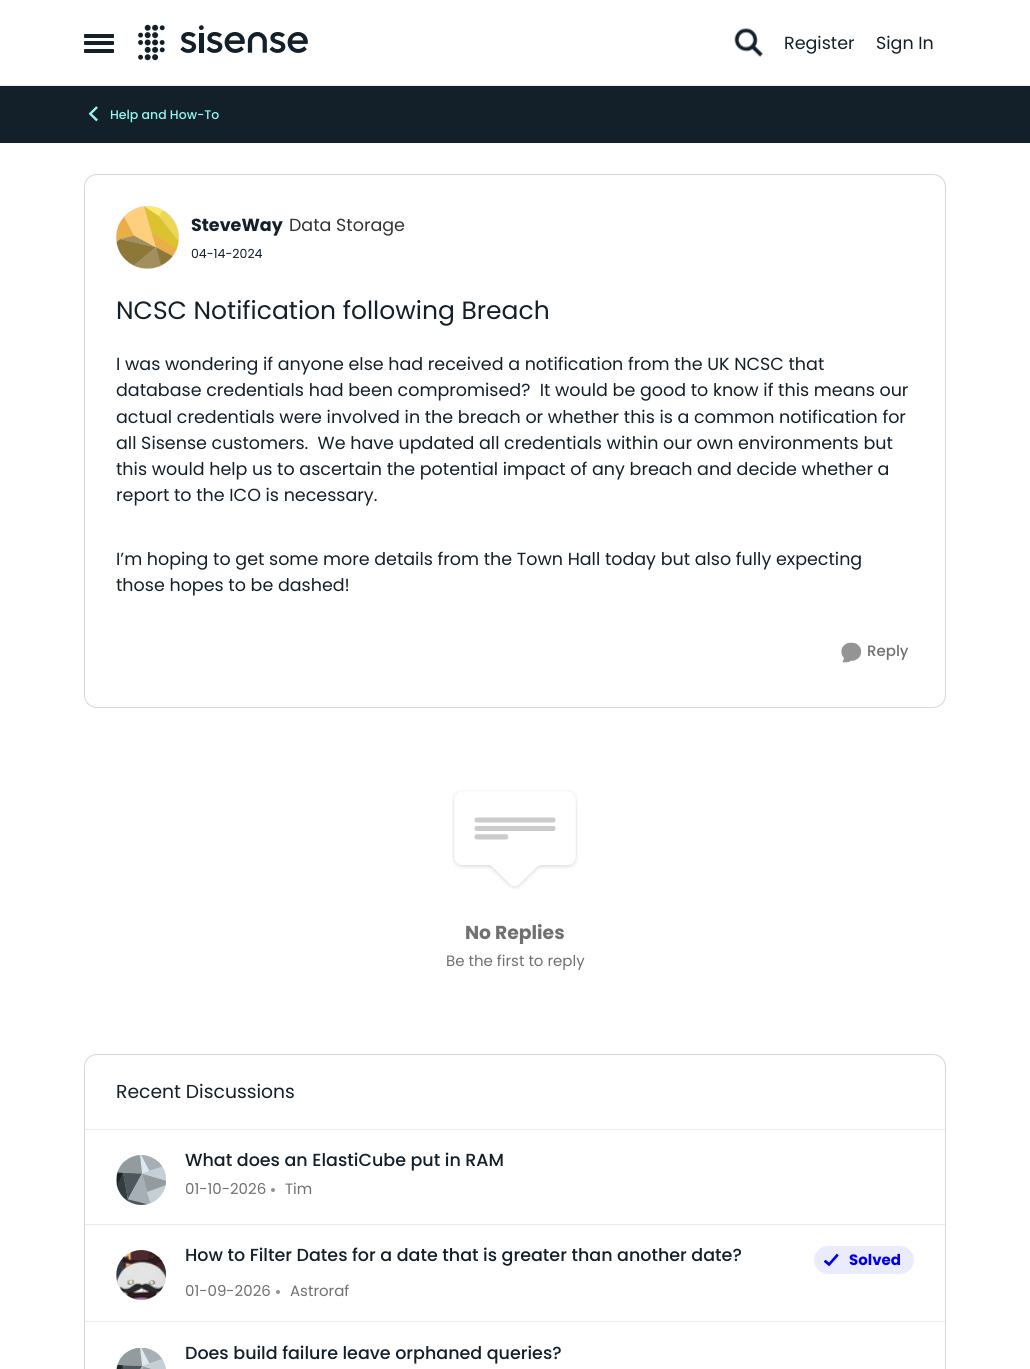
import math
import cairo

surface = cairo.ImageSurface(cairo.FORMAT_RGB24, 1030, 1369)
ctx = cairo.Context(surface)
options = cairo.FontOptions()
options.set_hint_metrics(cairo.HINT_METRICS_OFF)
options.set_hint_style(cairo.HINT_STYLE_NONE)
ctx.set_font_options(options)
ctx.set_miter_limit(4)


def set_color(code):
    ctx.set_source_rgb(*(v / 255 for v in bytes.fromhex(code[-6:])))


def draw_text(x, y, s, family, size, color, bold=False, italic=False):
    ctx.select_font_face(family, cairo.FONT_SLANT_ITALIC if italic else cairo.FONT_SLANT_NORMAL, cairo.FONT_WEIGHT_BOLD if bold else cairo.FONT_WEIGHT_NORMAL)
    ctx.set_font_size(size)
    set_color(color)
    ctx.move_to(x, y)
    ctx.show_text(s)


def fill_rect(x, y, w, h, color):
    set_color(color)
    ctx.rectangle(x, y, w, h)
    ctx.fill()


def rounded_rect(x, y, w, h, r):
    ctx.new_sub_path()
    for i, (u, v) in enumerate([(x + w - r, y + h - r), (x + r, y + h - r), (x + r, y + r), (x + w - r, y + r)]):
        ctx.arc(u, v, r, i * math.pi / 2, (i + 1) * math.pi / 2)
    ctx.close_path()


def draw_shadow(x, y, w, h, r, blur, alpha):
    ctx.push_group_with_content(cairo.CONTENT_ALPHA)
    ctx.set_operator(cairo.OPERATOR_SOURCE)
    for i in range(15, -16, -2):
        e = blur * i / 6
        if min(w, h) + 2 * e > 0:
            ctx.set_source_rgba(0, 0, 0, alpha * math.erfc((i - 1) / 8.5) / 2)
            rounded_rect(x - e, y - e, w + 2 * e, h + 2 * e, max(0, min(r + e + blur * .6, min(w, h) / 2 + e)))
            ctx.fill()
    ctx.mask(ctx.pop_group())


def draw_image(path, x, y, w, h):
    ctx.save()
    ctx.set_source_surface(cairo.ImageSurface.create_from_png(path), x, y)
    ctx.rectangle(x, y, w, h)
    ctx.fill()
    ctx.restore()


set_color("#ffffff")
ctx.paint()
fill_rect(0, 86, 1030, 57, "#131f29")
set_color("#333333")
draw_shadow(0, 3, 1030, 86, 0, 2.5, 0.12)
fill_rect(0, 0, 1030, 85, "#ffffff")
fill_rect(0, 85, 1030, 1, "#ebebeb")
set_color("#131f29")
rounded_rect(84, 34, 30, 4, 1)
ctx.fill()
rounded_rect(84, 41, 30, 4, 1)
ctx.fill()
rounded_rect(84, 49, 30, 4, 1)
ctx.fill()
draw_image("assets/img1.png", 138, 24, 170, 37)
draw_image("assets/img2.png", 734, 28, 29, 29)
draw_text(784, 49, "Register", "Poppins", 17.5, "#131f29")
draw_text(876, 49, "Sign In", "Poppins", 17.5, "#131f29")
draw_image("assets/img3.png", 88, 106, 10, 16)
draw_text(110, 119, "Help and How-To", "Poppins Medium", 12.5, "#94f5f0")
rounded_rect(84.5, 174.5, 861, 533, 12.5)
set_color("#d6d6d6")
ctx.set_line_width(1)
ctx.stroke()
set_color("#d9d9d9")
ctx.arc(147.5, 237.5, 31.5, 0, 2 * math.pi)
ctx.fill()
draw_image("assets/img4.png", 116, 206, 63, 63)
draw_text(191, 231, "SteveWay", "Poppins", 17.5, "#131f29", bold=True)
draw_text(289, 231, "Data Storage", "Poppins", 17.5, "#333333")
draw_text(191, 258, "04-14-2024", "Poppins", 12.5, "#131f29")
draw_text(116, 319, "NCSC Notification following Breach", "Poppins", 25, "#131f29")
draw_text(116, 370, "I was wondering if anyone else had received a notification from the UK NCSC that", "Poppins", 17.5, "#131f29")
draw_text(116, 396, "database credentials had been compromised?  It would be good to know if this means our", "Poppins", 17.5, "#131f29")
draw_text(116, 423, "actual credentials were involved in the breach or whether this is a common notification for", "Poppins", 17.5, "#131f29")
draw_text(116, 449, "all Sisense customers.  We have updated all credentials within our own environments but", "Poppins", 17.5, "#131f29")
draw_text(116, 475, "this would help us to ascertain the potential impact of any breach and decide whether a", "Poppins", 17.5, "#131f29")
draw_text(116, 501, "report to the ICO is necessary.", "Poppins", 17.5, "#131f29")
draw_text(116, 565, "I’m hoping to get some more details from the Town Hall today but also fully expecting", "Poppins", 17.5, "#131f29")
draw_text(116, 591, "those hopes to be dashed!", "Poppins", 17.5, "#131f29")
draw_image("assets/img5.png", 841, 642, 21, 21)
draw_text(867, 656, "Reply", "Poppins Medium", 15, "#707070")
draw_image("assets/img6.png", 452, 790, 126, 99)
draw_text(465, 939, "No Replies", "Poppins", 18.75, "#707070", bold=True)
draw_text(446, 966, "Be the first to reply", "Poppins", 15, "#707070")
rounded_rect(84.5, 1054.5, 861, 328, 12.5)
set_color("#d6d6d6")
ctx.stroke()
fill_rect(85, 1129, 860, 1, "#ebebeb")
draw_text(116, 1098, "Recent Discussions", "Poppins", 18.75, "#131f29")
fill_rect(85, 1224, 860, 1, "#ebebeb")
set_color("#d9d9d9")
ctx.new_path()
ctx.arc(141, 1180, 25, 0, 2 * math.pi)
ctx.fill()
draw_image("assets/img7.png", 116, 1155, 50, 50)
draw_text(185, 1166, "What does an ElastiCube put in RAM", "Poppins Medium", 17.5, "#131f29")
draw_text(185, 1194, "01-10-2026", "Poppins", 15, "#707070")
set_color("#949494")
ctx.new_path()
ctx.arc(273, 1190, 2, 0, 2 * math.pi)
ctx.fill()
draw_text(285, 1194, "Tim", "Poppins", 15, "#707070")
fill_rect(85, 1321, 860, 1, "#ebebeb")
set_color("#d9d9d9")
ctx.new_path()
ctx.arc(141, 1275, 25, 0, 2 * math.pi)
ctx.fill()
draw_image("assets/img8.png", 116, 1250, 51, 50)
draw_text(185, 1261, "How to Filter Dates for a date that is greater than another date?", "Poppins Medium", 17.5, "#131f29")
set_color("#ebebfe")
rounded_rect(814, 1246, 100, 28, 14)
ctx.fill()
draw_image("assets/img9.png", 824, 1253, 15, 14)
draw_text(849, 1265, "Solved", "Poppins", 15, "#0000ee", bold=True)
draw_text(185, 1296, "01-09-2026", "Poppins", 15, "#707070")
set_color("#949494")
ctx.new_path()
ctx.arc(278, 1292, 2, 0, 2 * math.pi)
ctx.fill()
draw_text(290, 1296, "Astroraf", "Poppins", 15, "#707070")
set_color("#d9d9d9")
rounded_rect(116, 1348, 50, 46, 25)
ctx.fill()
draw_image("assets/img10.png", 116, 1348, 50, 21)
draw_text(185, 1359, "Does build failure leave orphaned queries?", "Poppins Medium", 17.5, "#131f29")
surface.write_to_png("output.png")
